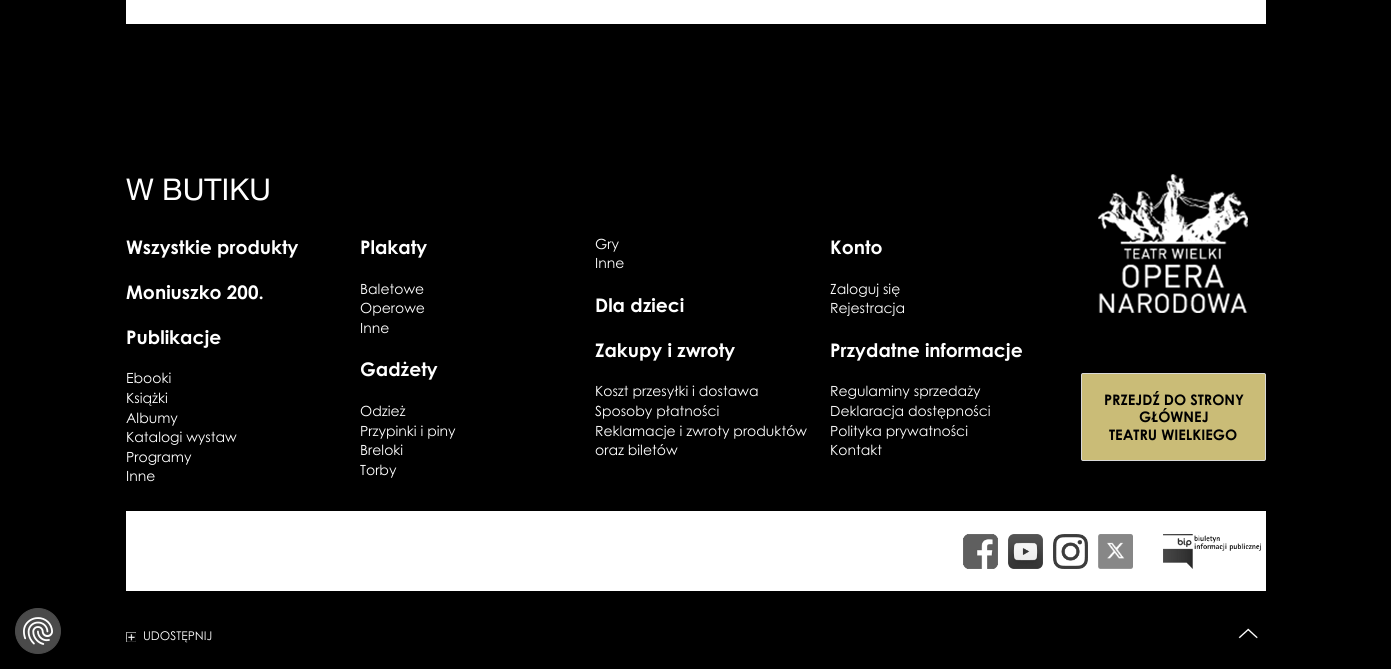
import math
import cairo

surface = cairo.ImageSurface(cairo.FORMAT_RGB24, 1391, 669)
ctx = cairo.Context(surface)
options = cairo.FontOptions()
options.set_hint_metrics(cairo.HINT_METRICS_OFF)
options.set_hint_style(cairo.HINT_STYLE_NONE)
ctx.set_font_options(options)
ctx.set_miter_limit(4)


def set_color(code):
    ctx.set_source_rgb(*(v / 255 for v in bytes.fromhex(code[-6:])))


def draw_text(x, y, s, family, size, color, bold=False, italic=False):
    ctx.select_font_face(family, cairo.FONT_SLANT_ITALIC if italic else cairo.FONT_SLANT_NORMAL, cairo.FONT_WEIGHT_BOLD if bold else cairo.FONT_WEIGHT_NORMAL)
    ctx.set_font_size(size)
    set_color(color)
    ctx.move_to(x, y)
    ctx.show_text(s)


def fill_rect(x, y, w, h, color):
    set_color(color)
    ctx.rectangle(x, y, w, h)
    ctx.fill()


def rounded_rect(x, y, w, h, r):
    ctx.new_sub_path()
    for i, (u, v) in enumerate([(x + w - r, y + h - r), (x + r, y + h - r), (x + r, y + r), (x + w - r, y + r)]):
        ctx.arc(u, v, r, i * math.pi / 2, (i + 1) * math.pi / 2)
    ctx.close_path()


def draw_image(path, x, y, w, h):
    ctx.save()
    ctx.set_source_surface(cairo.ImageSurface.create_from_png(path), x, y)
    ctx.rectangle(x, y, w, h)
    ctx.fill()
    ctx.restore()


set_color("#000000")
ctx.paint()
fill_rect(126, 0, 1140, 24, "#ffffff")
set_color("#4a4a4a")
ctx.arc(38, 631, 22.5, 0, 2 * math.pi)
ctx.fill_preserve()
ctx.set_line_width(1)
ctx.stroke()
draw_image("assets/img1.png", 23, 617, 30, 28)
draw_text(126, 200, "W BUTIKU", "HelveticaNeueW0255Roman", 30, "#ffffff")
draw_text(126, 254, "Wszystkie produkty", "Century Gothic", 18.75, "#ffffff", bold=True)
draw_text(595, 249, "Gry", "Century Gothic", 14, "#ffffff")
draw_text(595, 268, "Inne", "Century Gothic", 14, "#ffffff")
draw_text(360, 416, "Odzież", "Century Gothic", 14, "#ffffff")
draw_text(360, 436, "Przypinki i piny", "Century Gothic", 14, "#ffffff")
draw_text(360, 455, "Breloki", "Century Gothic", 14, "#ffffff")
draw_text(360, 475, "Torby", "Century Gothic", 14, "#ffffff")
draw_text(360, 376, "Gadżety", "Century Gothic", 18.75, "#ffffff", bold=True)
draw_text(126, 299, "Moniuszko 200.", "Century Gothic", 18.75, "#ffffff", bold=True)
draw_text(360, 254, "Plakaty", "Century Gothic", 18.75, "#ffffff", bold=True)
draw_text(360, 294, "Baletowe", "Century Gothic", 14, "#ffffff")
draw_text(360, 313, "Operowe", "Century Gothic", 14, "#ffffff")
draw_text(360, 333, "Inne", "Century Gothic", 14, "#ffffff")
draw_text(830, 254, "Konto", "Century Gothic", 18.75, "#ffffff", bold=True)
draw_text(830, 294, "Zaloguj się", "Century Gothic", 14, "#ffffff")
draw_text(830, 313, "Rejestracja", "Century Gothic", 14, "#ffffff")
draw_text(595, 312, "Dla dzieci", "Century Gothic", 18.75, "#ffffff", bold=True)
draw_text(126, 344, "Publikacje", "Century Gothic", 18.75, "#ffffff", bold=True)
draw_text(126, 383, "Ebooki", "Century Gothic", 14, "#ffffff")
draw_text(126, 403, "Książki", "Century Gothic", 14, "#ffffff")
draw_text(126, 423, "Albumy", "Century Gothic", 14, "#ffffff")
draw_text(126, 442, "Katalogi wystaw", "Century Gothic", 14, "#ffffff")
draw_text(126, 462, "Programy", "Century Gothic", 14, "#ffffff")
draw_text(126, 481, "Inne", "Century Gothic", 14, "#ffffff")
draw_text(595, 357, "Zakupy i zwroty", "Century Gothic", 18.75, "#ffffff", bold=True)
draw_text(595, 396, "Koszt przesyłki i dostawa", "Century Gothic", 14, "#ffffff")
draw_text(595, 416, "Sposoby płatności", "Century Gothic", 14, "#ffffff")
draw_text(595, 436, "Reklamacje i zwroty produktów", "Century Gothic", 14, "#ffffff")
draw_text(595, 455, "oraz biletów", "Century Gothic", 14, "#ffffff")
draw_text(830, 357, "Przydatne informacje", "Century Gothic", 18.75, "#ffffff", bold=True)
draw_text(830, 396, "Regulaminy sprzedaży", "Century Gothic", 14, "#ffffff")
draw_text(830, 416, "Deklaracja dostępności", "Century Gothic", 14, "#ffffff")
draw_text(830, 436, "Polityka prywatności", "Century Gothic", 14, "#ffffff")
draw_text(830, 455, "Kontakt", "Century Gothic", 14, "#ffffff")
draw_image("assets/img2.png", 1098, 174, 150, 139)
set_color("#cabc77")
rounded_rect(1081.5, 373.5, 184, 87, 1.5)
ctx.fill_preserve()
set_color("#d9d9d9")
ctx.stroke()
draw_text(1104, 405, "PRZEJDŹ DO STRONY", "Century Gothic", 14.5, "#000000", bold=True)
draw_text(1139, 422, "GŁÓWNEJ", "Century Gothic", 14.5, "#000000", bold=True)
draw_text(1109, 440, "TEATRU WIELKIEGO", "Century Gothic", 14.5, "#000000", bold=True)
fill_rect(126, 511, 1140, 80, "#ffffff")
draw_image("assets/img3.png", 963, 534, 35, 35)
draw_image("assets/img4.png", 1008, 534, 35, 35)
draw_image("assets/img5.png", 1053, 534, 35, 35)
draw_image("assets/img6.png", 1098, 534, 35, 35)
draw_image("assets/img7.png", 1163, 534, 98, 35)
draw_image("assets/img8.png", 126, 632, 10, 10)
draw_text(143, 640, "UDOSTĘPNIJ", "Century Gothic", 12, "#ffffff")
draw_image("assets/img9.png", 1238, 628, 20, 11)
surface.write_to_png("output.png")
